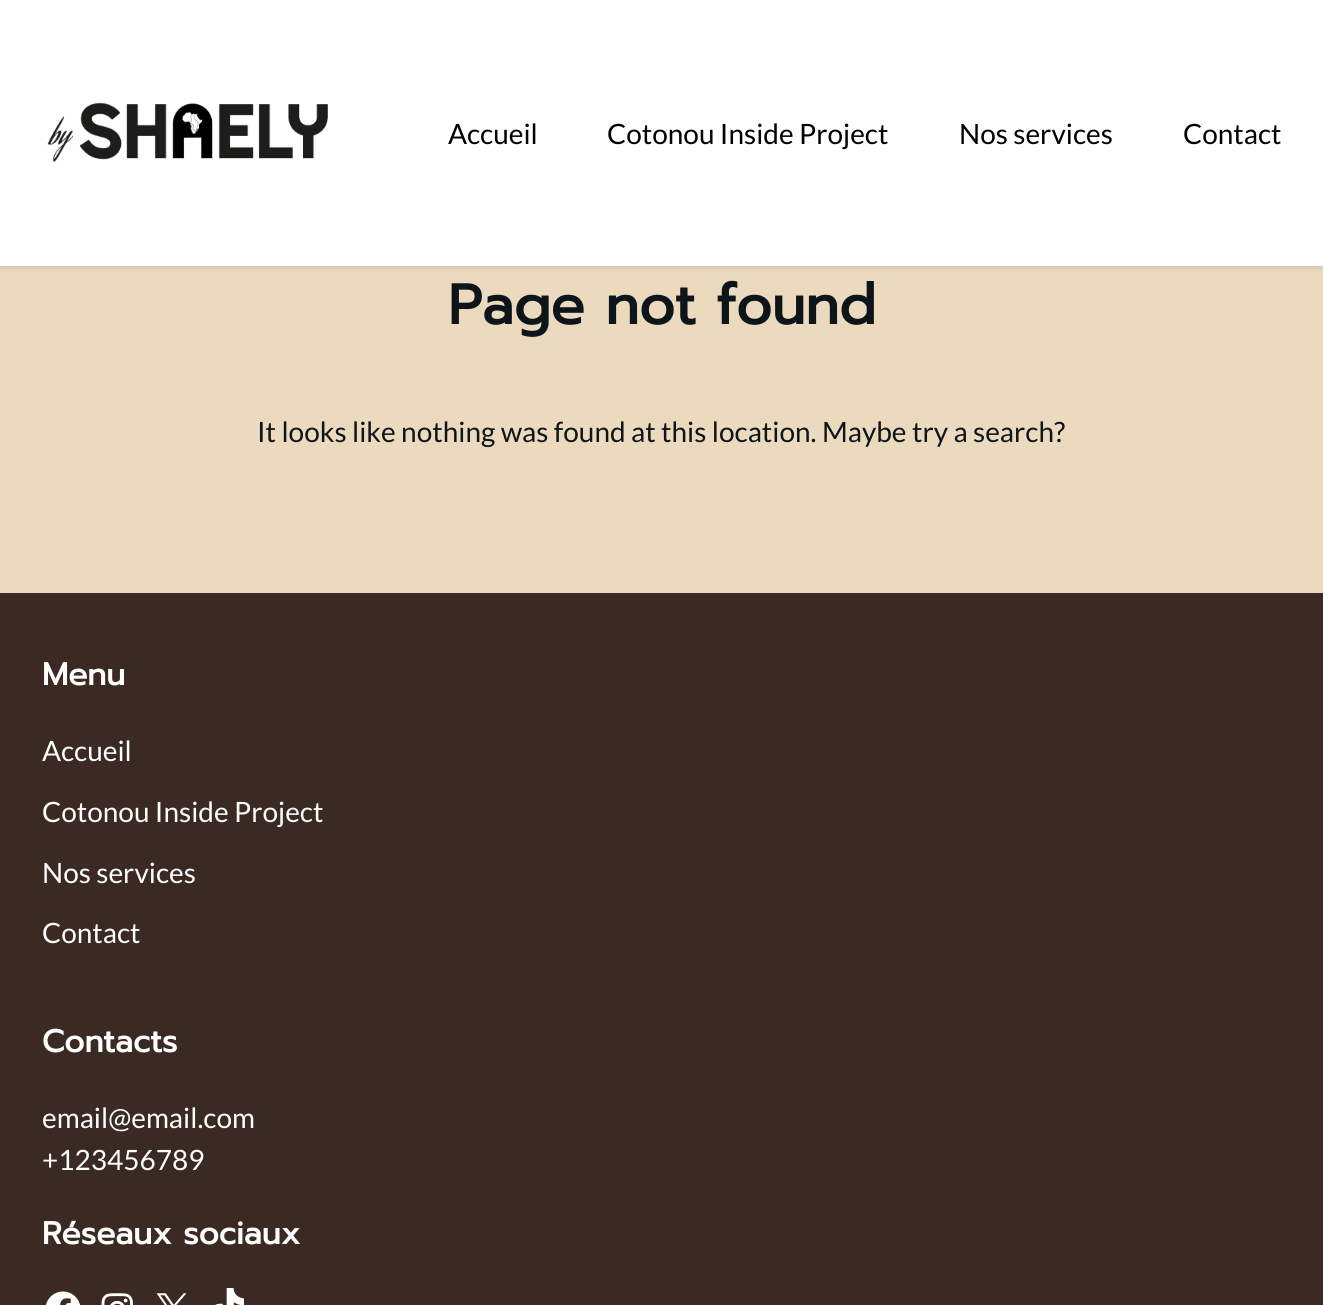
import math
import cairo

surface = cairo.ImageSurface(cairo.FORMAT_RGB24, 1323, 1305)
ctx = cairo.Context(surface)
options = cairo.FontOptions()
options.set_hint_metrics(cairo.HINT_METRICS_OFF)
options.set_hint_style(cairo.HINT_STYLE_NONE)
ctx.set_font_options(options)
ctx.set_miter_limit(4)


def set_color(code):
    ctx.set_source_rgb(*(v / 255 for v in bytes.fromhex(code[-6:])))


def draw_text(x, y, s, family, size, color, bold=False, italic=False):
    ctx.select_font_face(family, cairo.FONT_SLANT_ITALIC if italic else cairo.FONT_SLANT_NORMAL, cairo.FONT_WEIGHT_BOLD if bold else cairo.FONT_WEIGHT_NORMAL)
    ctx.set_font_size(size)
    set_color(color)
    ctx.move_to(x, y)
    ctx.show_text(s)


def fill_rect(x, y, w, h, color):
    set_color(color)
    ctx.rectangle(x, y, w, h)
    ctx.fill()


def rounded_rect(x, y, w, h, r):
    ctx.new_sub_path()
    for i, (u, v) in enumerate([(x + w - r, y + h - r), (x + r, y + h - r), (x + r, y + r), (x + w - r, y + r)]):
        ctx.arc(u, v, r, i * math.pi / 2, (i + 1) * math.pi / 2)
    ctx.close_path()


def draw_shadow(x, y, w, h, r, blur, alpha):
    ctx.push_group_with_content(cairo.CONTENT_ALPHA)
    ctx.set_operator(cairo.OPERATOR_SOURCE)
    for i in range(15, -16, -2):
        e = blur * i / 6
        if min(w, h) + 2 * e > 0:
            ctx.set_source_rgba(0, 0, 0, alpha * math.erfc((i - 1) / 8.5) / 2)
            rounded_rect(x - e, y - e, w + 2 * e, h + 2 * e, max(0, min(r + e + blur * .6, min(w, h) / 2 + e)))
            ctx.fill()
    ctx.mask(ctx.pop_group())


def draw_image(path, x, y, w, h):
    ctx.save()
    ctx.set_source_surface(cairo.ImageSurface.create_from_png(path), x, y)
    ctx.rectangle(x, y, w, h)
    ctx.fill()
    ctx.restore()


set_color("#ebdabe")
ctx.paint()
set_color("#000000")
draw_shadow(0, 2, 1323, 266, 0, 2.5, 0.1)
fill_rect(0, 0, 1323, 266, "#ffffff")
draw_image("assets/img1.png", 47, 102, 281, 60)
draw_text(448, 144, "Accueil", "Lato", 28, "#000000")
draw_text(607, 144, "Cotonou Inside Project", "Lato", 28, "#000000")
draw_text(959, 144, "Nos services", "Lato", 28, "#000000")
draw_text(1183, 144, "Contact", "Lato", 28, "#000000")
draw_text(448, 324, "Page not found", "Prompt", 56, "#0d141a", bold=True)
draw_text(257, 442, "It looks like nothing was found at this location. Maybe try a search?", "Lato", 28, "#0d141a")
fill_rect(0, 593, 1323, 712, "#3a2a23")
draw_text(42, 685, "Menu", "Prompt", 31.5, "#ffffff", bold=True)
draw_text(42, 761, "Accueil", "Lato", 28, "#ffffff")
draw_text(42, 822, "Cotonou Inside Project", "Lato", 28, "#ffffff")
draw_text(42, 883, "Nos services", "Lato", 28, "#ffffff")
draw_text(42, 943, "Contact", "Lato", 28, "#ffffff")
draw_text(42, 1052, "Contacts", "Prompt", 31.5, "#ffffff", bold=True)
draw_text(42, 1128, "email@email.com", "Lato", 28, "#ffffff")
draw_text(42, 1170, "+123456789", "Lato", 28, "#ffffff")
draw_text(42, 1244, "Réseaux sociaux", "Prompt", 31.5, "#ffffff", bold=True)
draw_image("assets/img2.png", 46, 1291, 34, 14)
draw_image("assets/img3.png", 101, 1293, 32, 12)
draw_image("assets/img4.png", 156, 1293, 31, 12)
draw_image("assets/img5.png", 215, 1288, 29, 17)
surface.write_to_png("output.png")
